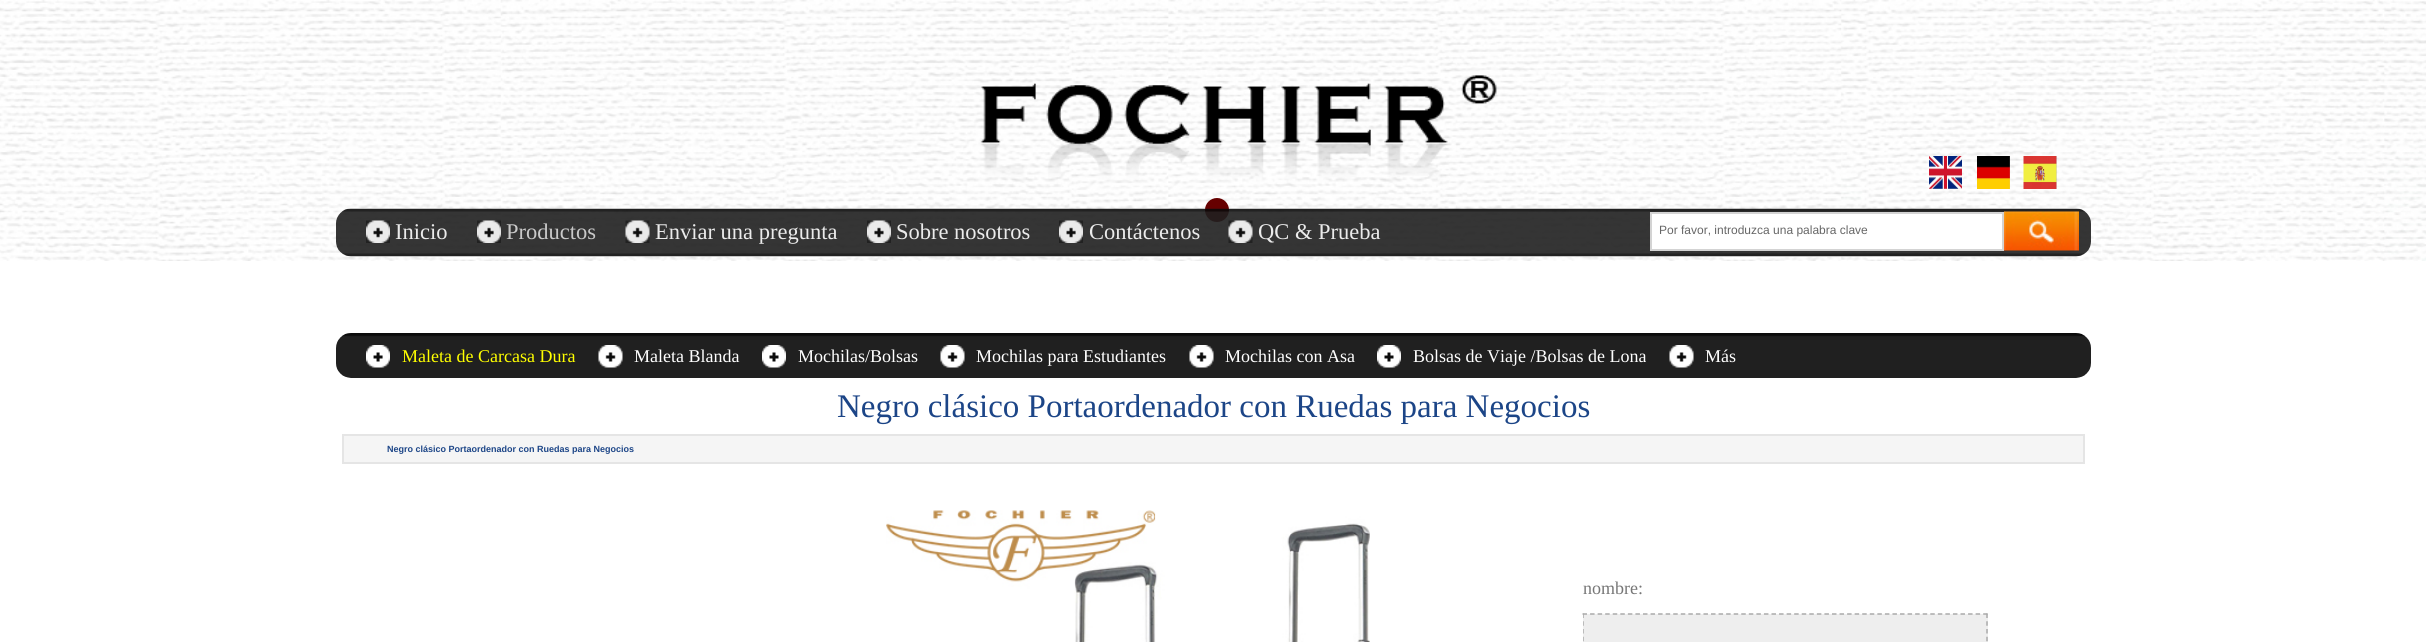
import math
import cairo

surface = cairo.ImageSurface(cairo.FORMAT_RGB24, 2426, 642)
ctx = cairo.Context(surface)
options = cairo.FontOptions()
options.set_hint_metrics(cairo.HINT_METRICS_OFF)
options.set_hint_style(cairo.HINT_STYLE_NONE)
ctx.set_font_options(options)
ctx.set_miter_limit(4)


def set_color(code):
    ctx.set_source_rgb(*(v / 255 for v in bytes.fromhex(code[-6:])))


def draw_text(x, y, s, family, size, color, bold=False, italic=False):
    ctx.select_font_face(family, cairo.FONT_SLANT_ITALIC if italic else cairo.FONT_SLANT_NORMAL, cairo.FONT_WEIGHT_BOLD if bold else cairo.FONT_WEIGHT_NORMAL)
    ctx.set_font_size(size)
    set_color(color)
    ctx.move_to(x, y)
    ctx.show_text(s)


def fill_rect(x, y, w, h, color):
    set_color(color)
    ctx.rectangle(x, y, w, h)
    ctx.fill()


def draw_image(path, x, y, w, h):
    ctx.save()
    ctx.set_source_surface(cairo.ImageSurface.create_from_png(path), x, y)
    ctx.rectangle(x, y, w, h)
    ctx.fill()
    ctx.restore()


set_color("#ffffff")
ctx.paint()
draw_image("assets/img1.png", 0, 0, 2426, 261)
set_color("#660000")
ctx.arc(1217, 210, 10.5, 0, 2 * math.pi)
ctx.fill_preserve()
ctx.set_line_width(3)
ctx.stroke()
draw_image("assets/img2.png", 1929, 156, 33, 33)
draw_image("assets/img3.png", 1977, 156, 33, 33)
draw_image("assets/img4.png", 2023, 156, 34, 33)
draw_image("assets/img5.png", 336, 208, 1755, 49)
draw_image("assets/img6.png", 366, 220, 24, 23)
draw_text(395, 239, "Inicio", "Liberation Serif", 22.5, "#ebebeb")
draw_image("assets/img7.png", 477, 220, 24, 23)
draw_text(506, 239, "Productos", "Liberation Serif", 22.5, "#c9c9c9")
draw_image("assets/img8.png", 625, 220, 25, 23)
draw_text(655, 239, "Enviar una pregunta", "Liberation Serif", 22.5, "#ebebeb")
draw_image("assets/img9.png", 867, 220, 24, 23)
draw_text(896, 239, "Sobre nosotros", "Liberation Serif", 22.5, "#ebebeb")
draw_image("assets/img10.png", 1059, 220, 24, 23)
draw_text(1089, 239, "Contáctenos", "Liberation Serif", 22.5, "#ebebeb")
draw_image("assets/img11.png", 1228, 220, 25, 23)
draw_text(1258, 239, "QC & Prueba", "Liberation Serif", 22.5, "#ebebeb")
set_color("#ffffff")
ctx.rectangle(1651, 213, 352, 37)
ctx.fill_preserve()
set_color("#d3d3d3")
ctx.set_line_width(2)
ctx.stroke()
draw_text(1659, 234, "Por favor, introduzca una palabra clave", "Liberation Sans", 12, "#666666")
draw_image("assets/img12.png", 2004, 211, 75, 40)
draw_image("assets/img13.png", 336, 333, 1755, 45)
draw_image("assets/img14.png", 366, 345, 24, 23)
draw_text(402, 362, "Maleta de Carcasa Dura", "Liberation Serif", 18, "#ffff00")
draw_image("assets/img15.png", 598, 345, 25, 23)
draw_text(634, 362, "Maleta Blanda", "Liberation Serif", 18, "#ffffff")
draw_image("assets/img16.png", 762, 345, 24, 23)
draw_text(798, 362, "Mochilas/Bolsas", "Liberation Serif", 18, "#ffffff")
draw_image("assets/img17.png", 940, 345, 25, 23)
draw_text(976, 362, "Mochilas para Estudiantes", "Liberation Serif", 18, "#ffffff")
draw_image("assets/img15.png", 1189, 345, 25, 23)
draw_text(1225, 362, "Mochilas con Asa", "Liberation Serif", 18, "#ffffff")
draw_image("assets/img16.png", 1377, 345, 24, 23)
draw_text(1413, 362, "Bolsas de Viaje /Bolsas de Lona", "Liberation Serif", 18, "#ffffff")
draw_image("assets/img17.png", 1669, 345, 25, 23)
draw_text(1705, 362, "Más", "Liberation Serif", 18, "#ffffff")
draw_text(837, 417, "Negro clásico Portaordenador con Ruedas para Negocios", "Liberation Serif", 33, "#1c4587")
set_color("#f5f5f5")
ctx.rectangle(343, 435, 1741, 28)
ctx.fill_preserve()
set_color("#e5e5e5")
ctx.stroke()
draw_text(387, 452, "Negro clásico Portaordenador con Ruedas para Negocios", "Liberation Sans", 9, "#1c4587", bold=True)
draw_image("assets/img18.png", 886, 510, 484, 132)
draw_text(1583, 594, "nombre:", "Liberation Serif", 18, "#777777")
fill_rect(1583, 614, 405, 28, "#eeeeee")
ctx.new_path()
ctx.move_to(1582.5, 614)
ctx.line_to(1987.5, 614)
set_color("#aaaaaa")
ctx.set_line_width(1.5)
ctx.set_dash([4.5, 3.06])
ctx.stroke()
ctx.new_path()
ctx.move_to(1987, 613.5)
ctx.line_to(1987, 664.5)
ctx.set_dash([4.5, 3.25])
ctx.stroke()
ctx.save()
ctx.rectangle(1583, 563, 459, 79)
ctx.clip()
ctx.new_path()
ctx.move_to(1583, 613.5)
ctx.line_to(1583, 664.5)
ctx.stroke()
ctx.restore()
surface.write_to_png("output.png")
